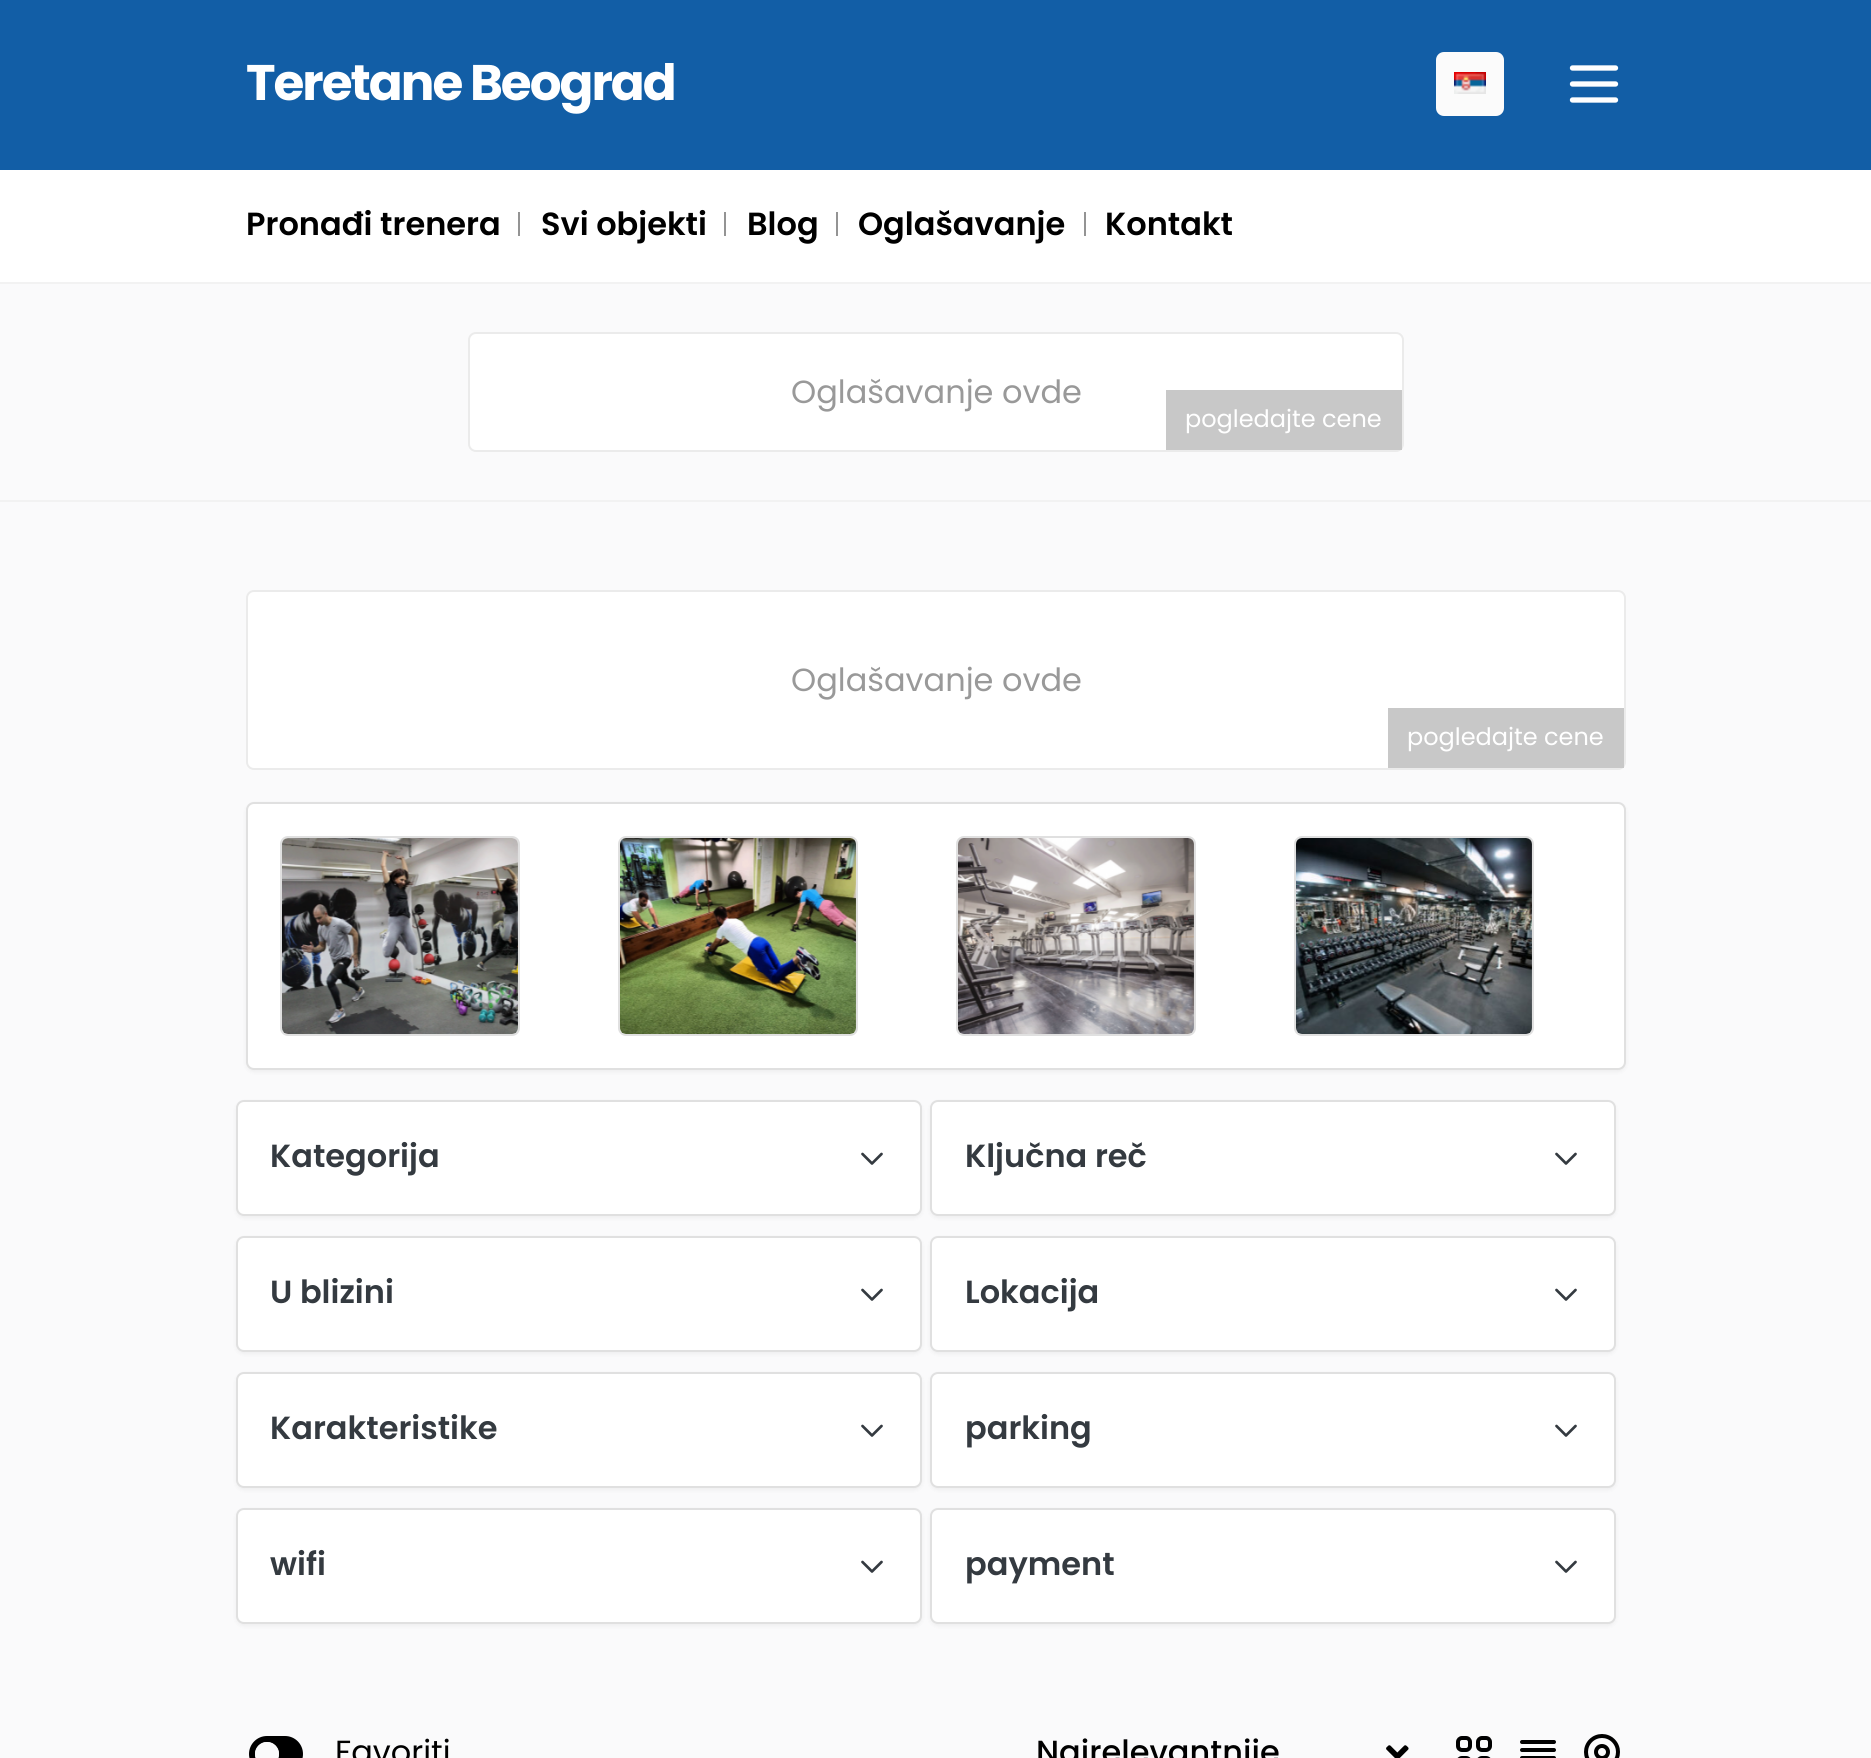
import math
import cairo

surface = cairo.ImageSurface(cairo.FORMAT_RGB24, 1871, 1758)
ctx = cairo.Context(surface)
options = cairo.FontOptions()
options.set_hint_metrics(cairo.HINT_METRICS_OFF)
options.set_hint_style(cairo.HINT_STYLE_NONE)
ctx.set_font_options(options)
ctx.set_miter_limit(4)


def set_color(code):
    ctx.set_source_rgb(*(v / 255 for v in bytes.fromhex(code[-6:])))


def draw_text(x, y, s, family, size, color, bold=False, italic=False):
    ctx.select_font_face(family, cairo.FONT_SLANT_ITALIC if italic else cairo.FONT_SLANT_NORMAL, cairo.FONT_WEIGHT_BOLD if bold else cairo.FONT_WEIGHT_NORMAL)
    ctx.set_font_size(size)
    set_color(color)
    ctx.move_to(x, y)
    ctx.show_text(s)


def draw_spaced(x, y, s, letter, word):
    ctx.move_to(x, y)
    for ch in s:
        ctx.show_text(ch)
        ctx.rel_move_to(letter + word * (ch == ' '), 0)


def fill_rect(x, y, w, h, color):
    set_color(color)
    ctx.rectangle(x, y, w, h)
    ctx.fill()


def rounded_rect(x, y, w, h, r):
    ctx.new_sub_path()
    for i, (u, v) in enumerate([(x + w - r, y + h - r), (x + r, y + h - r), (x + r, y + r), (x + w - r, y + r)]):
        ctx.arc(u, v, r, i * math.pi / 2, (i + 1) * math.pi / 2)
    ctx.close_path()


def draw_shadow(x, y, w, h, r, blur, alpha):
    ctx.push_group_with_content(cairo.CONTENT_ALPHA)
    ctx.set_operator(cairo.OPERATOR_SOURCE)
    for i in range(15, -16, -2):
        e = blur * i / 6
        if min(w, h) + 2 * e > 0:
            ctx.set_source_rgba(0, 0, 0, alpha * math.erfc((i - 1) / 8.5) / 2)
            rounded_rect(x - e, y - e, w + 2 * e, h + 2 * e, max(0, min(r + e + blur * .6, min(w, h) / 2 + e)))
            ctx.fill()
    ctx.mask(ctx.pop_group())


def draw_image(path, x, y, w, h):
    ctx.save()
    ctx.set_source_surface(cairo.ImageSurface.create_from_png(path), x, y)
    ctx.rectangle(x, y, w, h)
    ctx.fill()
    ctx.restore()


set_color("#fafafb")
ctx.paint()
fill_rect(0, 0, 1871, 170, "#125ea6")
ctx.select_font_face("Poppins", cairo.FONT_SLANT_NORMAL, cairo.FONT_WEIGHT_BOLD)
ctx.set_font_size(50)
set_color("#ffffff")
draw_spaced(246, 100, "Teretane Beograd", -2, 0)
set_color("#fbfbfb")
rounded_rect(1436, 52, 68, 64, 8)
ctx.fill()
draw_image("assets/img1.png", 1454, 72, 32, 22)
ctx.new_path()
ctx.move_to(1572.5, 68)
ctx.line_to(1615.5, 68)
ctx.move_to(1572.5, 84)
ctx.line_to(1615.5, 84)
ctx.move_to(1572.5, 100)
ctx.line_to(1615.5, 100)
set_color("#ffffff")
ctx.set_line_width(5.3)
ctx.set_line_cap(cairo.LINE_CAP_ROUND)
ctx.set_line_join(cairo.LINE_JOIN_ROUND)
ctx.stroke()
fill_rect(0, 170, 1871, 112, "#ffffff")
draw_text(246, 235, "Pronađi trenera", "Poppins SemiBold", 32, "#000000")
fill_rect(518, 212, 2, 24, "#949494")
draw_text(541, 235, "Svi objekti", "Poppins SemiBold", 32, "#000000")
fill_rect(724, 212, 2, 24, "#949494")
draw_text(747, 235, "Blog", "Poppins SemiBold", 32, "#000000")
fill_rect(836, 212, 2, 24, "#949494")
draw_text(858, 235, "Oglašavanje", "Poppins SemiBold", 32, "#000000")
fill_rect(1084, 212, 2, 24, "#949494")
draw_text(1105, 235, "Kontakt", "Poppins SemiBold", 32, "#000000")
fill_rect(0, 282, 1871, 2, "#f2f2f2")
fill_rect(0, 500, 1871, 2, "#f2f2f2")
set_color("#ffffff")
rounded_rect(469, 333, 934, 118, 7)
ctx.fill_preserve()
set_color("#ebebeb")
ctx.set_line_width(2)
ctx.set_line_cap(cairo.LINE_CAP_BUTT)
ctx.set_line_join(cairo.LINE_JOIN_MITER)
ctx.stroke()
draw_text(791, 403, "Oglašavanje ovde", "Poppins", 32, "#999999")
fill_rect(1166, 390, 236, 60, "#c8c8c8")
draw_text(1185, 427, "pogledajte cene", "Poppins", 24, "#ffffff")
rounded_rect(247, 591, 1378, 178, 7)
ctx.fill_preserve()
set_color("#ebebeb")
ctx.stroke()
draw_text(791, 691, "Oglašavanje ovde", "Poppins", 32, "#999999")
fill_rect(1388, 708, 236, 60, "#c8c8c8")
draw_text(1407, 745, "pogledajte cene", "Poppins", 24, "#ffffff")
set_color("#000000")
draw_shadow(246, 804, 1380, 268, 8, 2, 0.05)
set_color("#ffffff")
rounded_rect(247, 803, 1378, 266, 7)
ctx.fill_preserve()
set_color("#e0e0e0")
ctx.stroke()
rounded_rect(281, 837, 238, 198, 7)
ctx.stroke()
draw_image("assets/img2.png", 282, 838, 236, 196)
rounded_rect(619, 837, 238, 198, 7)
ctx.stroke()
draw_image("assets/img3.png", 620, 838, 236, 196)
rounded_rect(957, 837, 238, 198, 7)
ctx.stroke()
draw_image("assets/img4.png", 958, 838, 236, 196)
rounded_rect(1295, 837, 238, 198, 7)
ctx.stroke()
draw_image("assets/img5.png", 1296, 838, 236, 196)
set_color("#000000")
draw_shadow(236, 1102, 686, 116, 8, 2, 0.05)
set_color("#ffffff")
rounded_rect(237, 1101, 684, 114, 7)
ctx.fill_preserve()
set_color("#e0e0e0")
ctx.stroke()
draw_text(270, 1167, "Kategorija", "Poppins SemiBold", 32, "#343a40")
ctx.new_path()
ctx.move_to(881.5, 1154)
ctx.line_to(872, 1163.5)
ctx.line_to(862.5, 1154)
ctx.set_line_width(2.7)
ctx.set_line_cap(cairo.LINE_CAP_ROUND)
ctx.set_line_join(cairo.LINE_JOIN_ROUND)
ctx.stroke()
set_color("#000000")
draw_shadow(930, 1102, 686, 116, 8, 2, 0.05)
set_color("#ffffff")
rounded_rect(931, 1101, 684, 114, 7)
ctx.fill_preserve()
set_color("#e0e0e0")
ctx.set_line_width(2)
ctx.set_line_cap(cairo.LINE_CAP_BUTT)
ctx.set_line_join(cairo.LINE_JOIN_MITER)
ctx.stroke()
draw_text(965, 1167, "Ključna reč", "Poppins SemiBold", 32, "#343a40")
ctx.new_path()
ctx.move_to(1575.5, 1154)
ctx.line_to(1566, 1163.5)
ctx.line_to(1556.5, 1154)
ctx.set_line_width(2.7)
ctx.set_line_cap(cairo.LINE_CAP_ROUND)
ctx.set_line_join(cairo.LINE_JOIN_ROUND)
ctx.stroke()
set_color("#000000")
draw_shadow(236, 1238, 686, 116, 8, 2, 0.05)
set_color("#ffffff")
rounded_rect(237, 1237, 684, 114, 7)
ctx.fill_preserve()
set_color("#e0e0e0")
ctx.set_line_width(2)
ctx.set_line_cap(cairo.LINE_CAP_BUTT)
ctx.set_line_join(cairo.LINE_JOIN_MITER)
ctx.stroke()
draw_text(270, 1303, "U blizini", "Poppins SemiBold", 32, "#343a40")
ctx.new_path()
ctx.move_to(881.5, 1290)
ctx.line_to(872, 1299.5)
ctx.line_to(862.5, 1290)
ctx.set_line_width(2.7)
ctx.set_line_cap(cairo.LINE_CAP_ROUND)
ctx.set_line_join(cairo.LINE_JOIN_ROUND)
ctx.stroke()
set_color("#000000")
draw_shadow(930, 1238, 686, 116, 8, 2, 0.05)
set_color("#ffffff")
rounded_rect(931, 1237, 684, 114, 7)
ctx.fill_preserve()
set_color("#e0e0e0")
ctx.set_line_width(2)
ctx.set_line_cap(cairo.LINE_CAP_BUTT)
ctx.set_line_join(cairo.LINE_JOIN_MITER)
ctx.stroke()
draw_text(965, 1303, "Lokacija", "Poppins SemiBold", 32, "#343a40")
ctx.new_path()
ctx.move_to(1575.5, 1290)
ctx.line_to(1566, 1299.5)
ctx.line_to(1556.5, 1290)
ctx.set_line_width(2.7)
ctx.set_line_cap(cairo.LINE_CAP_ROUND)
ctx.set_line_join(cairo.LINE_JOIN_ROUND)
ctx.stroke()
set_color("#000000")
draw_shadow(236, 1374, 686, 116, 8, 2, 0.05)
set_color("#ffffff")
rounded_rect(237, 1373, 684, 114, 7)
ctx.fill_preserve()
set_color("#e0e0e0")
ctx.set_line_width(2)
ctx.set_line_cap(cairo.LINE_CAP_BUTT)
ctx.set_line_join(cairo.LINE_JOIN_MITER)
ctx.stroke()
draw_text(270, 1439, "Karakteristike", "Poppins SemiBold", 32, "#343a40")
ctx.new_path()
ctx.move_to(881.5, 1426)
ctx.line_to(872, 1435.5)
ctx.line_to(862.5, 1426)
ctx.set_line_width(2.7)
ctx.set_line_cap(cairo.LINE_CAP_ROUND)
ctx.set_line_join(cairo.LINE_JOIN_ROUND)
ctx.stroke()
set_color("#000000")
draw_shadow(930, 1374, 686, 116, 8, 2, 0.05)
set_color("#ffffff")
rounded_rect(931, 1373, 684, 114, 7)
ctx.fill_preserve()
set_color("#e0e0e0")
ctx.set_line_width(2)
ctx.set_line_cap(cairo.LINE_CAP_BUTT)
ctx.set_line_join(cairo.LINE_JOIN_MITER)
ctx.stroke()
draw_text(965, 1439, "parking", "Poppins SemiBold", 32, "#343a40")
ctx.new_path()
ctx.move_to(1575.5, 1426)
ctx.line_to(1566, 1435.5)
ctx.line_to(1556.5, 1426)
ctx.set_line_width(2.7)
ctx.set_line_cap(cairo.LINE_CAP_ROUND)
ctx.set_line_join(cairo.LINE_JOIN_ROUND)
ctx.stroke()
set_color("#000000")
draw_shadow(236, 1510, 686, 116, 8, 2, 0.05)
set_color("#ffffff")
rounded_rect(237, 1509, 684, 114, 7)
ctx.fill_preserve()
set_color("#e0e0e0")
ctx.set_line_width(2)
ctx.set_line_cap(cairo.LINE_CAP_BUTT)
ctx.set_line_join(cairo.LINE_JOIN_MITER)
ctx.stroke()
draw_text(270, 1575, "wifi", "Poppins SemiBold", 32, "#343a40")
ctx.new_path()
ctx.move_to(881.5, 1562)
ctx.line_to(872, 1571.5)
ctx.line_to(862.5, 1562)
ctx.set_line_width(2.7)
ctx.set_line_cap(cairo.LINE_CAP_ROUND)
ctx.set_line_join(cairo.LINE_JOIN_ROUND)
ctx.stroke()
set_color("#000000")
draw_shadow(930, 1510, 686, 116, 8, 2, 0.05)
set_color("#ffffff")
rounded_rect(931, 1509, 684, 114, 7)
ctx.fill_preserve()
set_color("#e0e0e0")
ctx.set_line_width(2)
ctx.set_line_cap(cairo.LINE_CAP_BUTT)
ctx.set_line_join(cairo.LINE_JOIN_MITER)
ctx.stroke()
draw_text(965, 1575, "payment", "Poppins SemiBold", 32, "#343a40")
ctx.new_path()
ctx.move_to(1575.5, 1562)
ctx.line_to(1566, 1571.5)
ctx.line_to(1556.5, 1562)
ctx.set_line_width(2.7)
ctx.set_line_cap(cairo.LINE_CAP_ROUND)
ctx.set_line_join(cairo.LINE_JOIN_ROUND)
ctx.stroke()
draw_image("assets/img6.png", 249, 1736, 54, 22)
draw_text(335, 1763, "Favoriti", "Poppins", 32, "#000000")
draw_text(1036, 1763, "Najrelevantnije", "Poppins Medium", 32, "#000000")
draw_image("assets/img7.png", 1386, 1745, 23, 13)
draw_image("assets/img8.png", 1456, 1736, 36, 22)
ctx.new_path()
ctx.move_to(1522, 1742)
ctx.line_to(1554, 1742)
ctx.move_to(1522, 1750)
ctx.line_to(1554, 1750)
ctx.move_to(1522, 1758)
ctx.line_to(1554, 1758)
ctx.move_to(1522, 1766)
ctx.line_to(1554, 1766)
ctx.set_line_width(4)
ctx.stroke()
draw_image("assets/img9.png", 1584, 1734, 36, 24)
surface.write_to_png("output.png")
